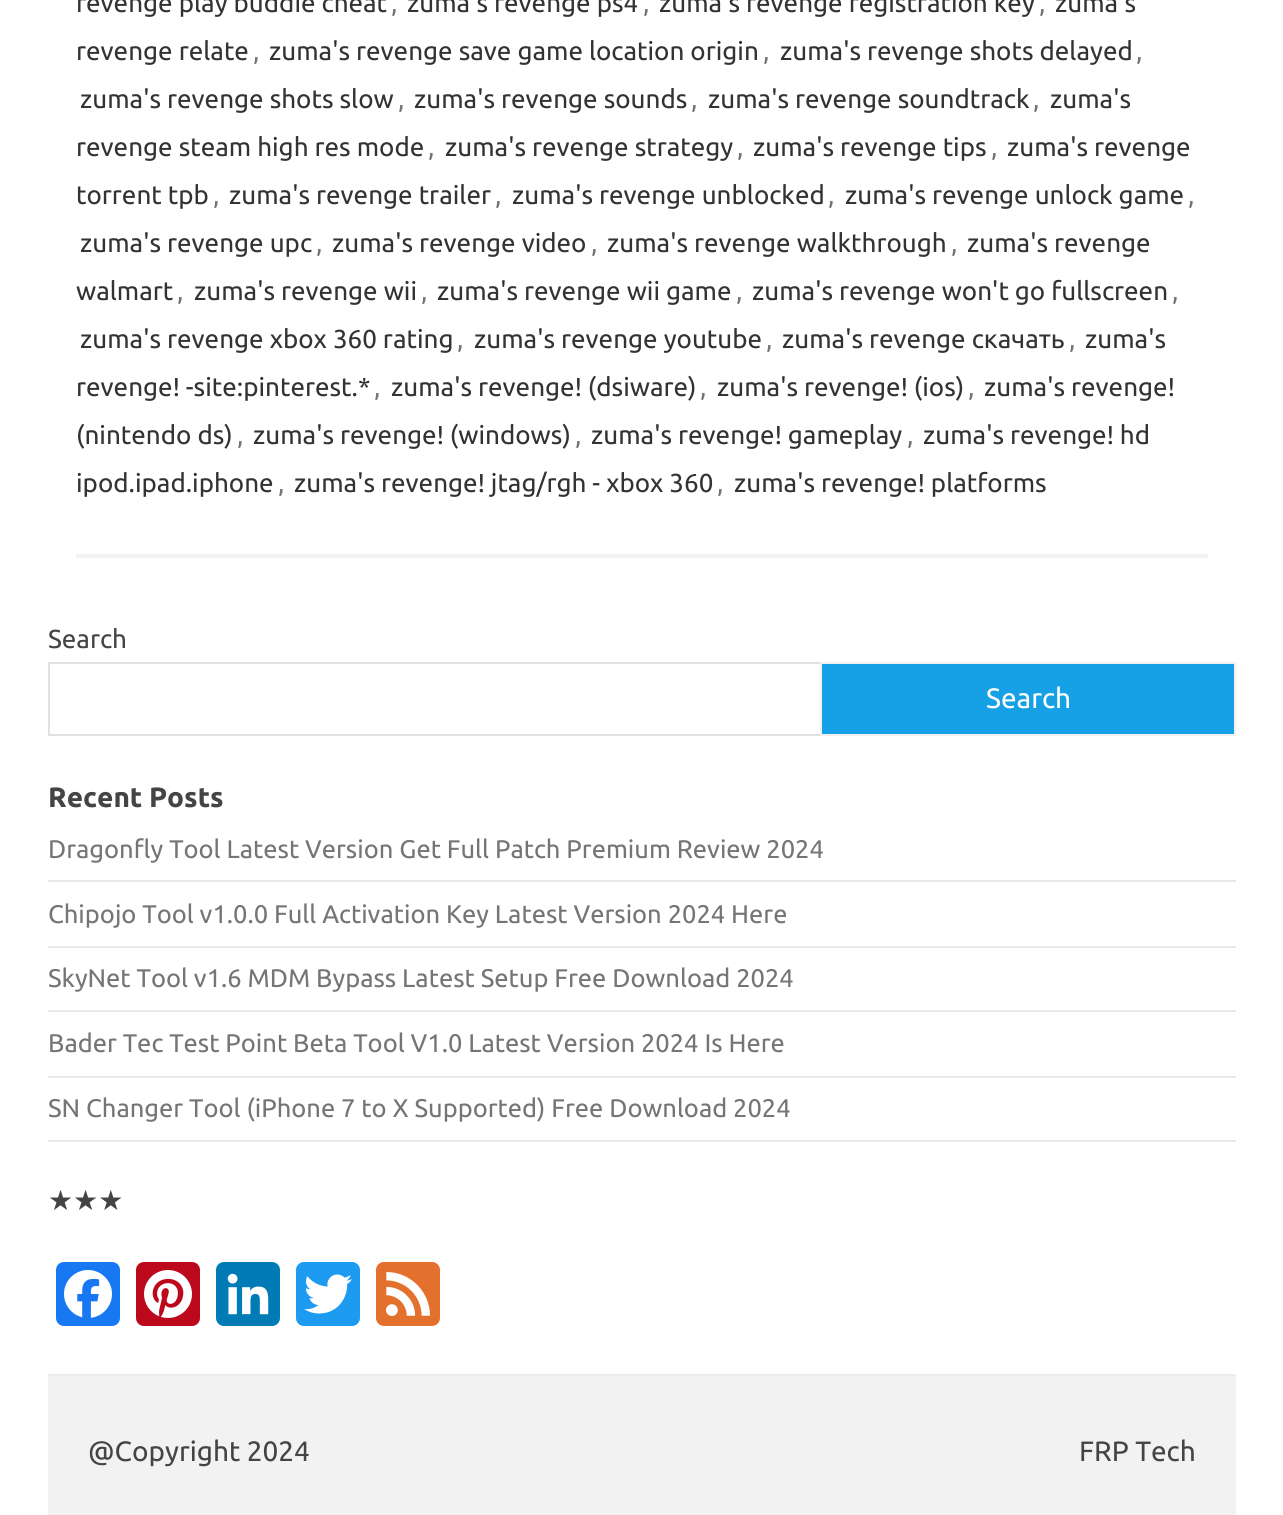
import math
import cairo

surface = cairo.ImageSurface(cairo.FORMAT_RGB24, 1283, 1515)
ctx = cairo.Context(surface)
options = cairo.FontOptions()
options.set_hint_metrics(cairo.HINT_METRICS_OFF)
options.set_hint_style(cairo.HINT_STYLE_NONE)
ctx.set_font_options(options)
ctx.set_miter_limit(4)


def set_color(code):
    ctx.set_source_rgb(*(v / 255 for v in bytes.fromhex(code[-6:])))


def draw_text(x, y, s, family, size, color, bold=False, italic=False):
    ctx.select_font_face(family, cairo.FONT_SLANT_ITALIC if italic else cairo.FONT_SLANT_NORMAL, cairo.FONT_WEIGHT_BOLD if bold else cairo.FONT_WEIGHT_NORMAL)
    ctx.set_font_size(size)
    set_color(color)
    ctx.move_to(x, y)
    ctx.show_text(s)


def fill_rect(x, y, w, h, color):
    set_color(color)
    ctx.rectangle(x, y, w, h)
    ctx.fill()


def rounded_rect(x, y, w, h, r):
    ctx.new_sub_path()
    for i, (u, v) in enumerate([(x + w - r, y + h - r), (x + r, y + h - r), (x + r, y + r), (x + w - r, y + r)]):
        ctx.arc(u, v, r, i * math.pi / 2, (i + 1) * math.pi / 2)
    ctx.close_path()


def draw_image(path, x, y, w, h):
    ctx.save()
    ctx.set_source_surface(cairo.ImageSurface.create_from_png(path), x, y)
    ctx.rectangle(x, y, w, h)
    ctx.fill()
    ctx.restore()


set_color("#ffffff")
ctx.paint()
fill_rect(76, 554, 1132, 4, "#f3f3f3")
draw_text(76, 12, "revenge play buddie cheat", "Ubuntu", 26, "#333333")
draw_text(391, 12, ",", "Ubuntu", 26, "#757575")
draw_text(407, 12, "zuma's revenge ps4", "Ubuntu", 26, "#333333")
draw_text(643, 12, ",", "Ubuntu", 26, "#757575")
draw_text(659, 12, "zuma's revenge registration key", "Ubuntu", 26, "#333333")
draw_text(1039, 12, ",", "Ubuntu", 26, "#757575")
draw_text(1055, 12, "zuma's", "Ubuntu", 26, "#333333")
draw_text(76, 60, "revenge relate", "Ubuntu", 26, "#333333")
draw_text(253, 60, ",", "Ubuntu", 26, "#757575")
draw_text(269, 60, "zuma's revenge save game location origin", "Ubuntu", 26, "#333333")
draw_text(763, 60, ",", "Ubuntu", 26, "#757575")
draw_text(780, 60, "zuma's revenge shots delayed", "Ubuntu", 26, "#333333")
draw_text(1136, 60, ",", "Ubuntu", 26, "#757575")
draw_text(80, 108, "zuma's revenge shots slow", "Ubuntu", 26, "#333333")
draw_text(398, 108, ",", "Ubuntu", 26, "#757575")
draw_text(414, 108, "zuma's revenge sounds", "Ubuntu", 26, "#333333")
draw_text(691, 108, ",", "Ubuntu", 26, "#757575")
draw_text(708, 108, "zuma's revenge soundtrack", "Ubuntu", 26, "#333333")
draw_text(1033, 108, ",", "Ubuntu", 26, "#757575")
draw_text(1050, 108, "zuma's", "Ubuntu", 26, "#333333")
draw_text(76, 156, "revenge steam high res mode", "Ubuntu", 26, "#333333")
draw_text(428, 156, ",", "Ubuntu", 26, "#757575")
draw_text(445, 156, "zuma's revenge strategy", "Ubuntu", 26, "#333333")
draw_text(737, 156, ",", "Ubuntu", 26, "#757575")
draw_text(753, 156, "zuma's revenge tips", "Ubuntu", 26, "#333333")
draw_text(991, 156, ",", "Ubuntu", 26, "#757575")
draw_text(1007, 156, "zuma's revenge", "Ubuntu", 26, "#333333")
draw_text(76, 204, "torrent tpb", "Ubuntu", 26, "#333333")
draw_text(213, 204, ",", "Ubuntu", 26, "#757575")
draw_text(229, 204, "zuma's revenge trailer", "Ubuntu", 26, "#333333")
draw_text(495, 204, ",", "Ubuntu", 26, "#757575")
draw_text(512, 204, "zuma's revenge unblocked", "Ubuntu", 26, "#333333")
draw_text(828, 204, ",", "Ubuntu", 26, "#757575")
draw_text(845, 204, "zuma's revenge unlock game", "Ubuntu", 26, "#333333")
draw_text(1188, 204, ",", "Ubuntu", 26, "#757575")
draw_text(80, 252, "zuma's revenge upc", "Ubuntu", 26, "#333333")
draw_text(316, 252, ",", "Ubuntu", 26, "#757575")
draw_text(332, 252, "zuma's revenge video", "Ubuntu", 26, "#333333")
draw_text(591, 252, ",", "Ubuntu", 26, "#757575")
draw_text(607, 252, "zuma's revenge walkthrough", "Ubuntu", 26, "#333333")
draw_text(951, 252, ",", "Ubuntu", 26, "#757575")
draw_text(967, 252, "zuma's revenge", "Ubuntu", 26, "#333333")
draw_text(76, 300, "walmart", "Ubuntu", 26, "#333333")
draw_text(177, 300, ",", "Ubuntu", 26, "#757575")
draw_text(194, 300, "zuma's revenge wii", "Ubuntu", 26, "#333333")
draw_text(421, 300, ",", "Ubuntu", 26, "#757575")
draw_text(437, 300, "zuma's revenge wii game", "Ubuntu", 26, "#333333")
draw_text(736, 300, ",", "Ubuntu", 26, "#757575")
draw_text(752, 300, "zuma's revenge won't go fullscreen", "Ubuntu", 26, "#333333")
draw_text(1172, 300, ",", "Ubuntu", 26, "#757575")
draw_text(80, 348, "zuma's revenge xbox 360 rating", "Ubuntu", 26, "#333333")
draw_text(457, 348, ",", "Ubuntu", 26, "#757575")
draw_text(474, 348, "zuma's revenge youtube", "Ubuntu", 26, "#333333")
draw_text(766, 348, ",", "Ubuntu", 26, "#757575")
draw_text(782, 348, "zuma's revenge скачать", "Ubuntu", 26, "#333333")
draw_text(1069, 348, ",", "Ubuntu", 26, "#757575")
draw_text(1085, 348, "zuma's", "Ubuntu", 26, "#333333")
draw_text(76, 396, "revenge! -site:pinterest.*", "Ubuntu", 26, "#333333")
draw_text(374, 396, ",", "Ubuntu", 26, "#757575")
draw_text(391, 396, "zuma's revenge! (dsiware)", "Ubuntu", 26, "#333333")
draw_text(700, 396, ",", "Ubuntu", 26, "#757575")
draw_text(717, 396, "zuma's revenge! (ios)", "Ubuntu", 26, "#333333")
draw_text(968, 396, ",", "Ubuntu", 26, "#757575")
draw_text(984, 396, "zuma's revenge!", "Ubuntu", 26, "#333333")
draw_text(76, 444, "(nintendo ds)", "Ubuntu", 26, "#333333")
draw_text(237, 444, ",", "Ubuntu", 26, "#757575")
draw_text(253, 444, "zuma's revenge! (windows)", "Ubuntu", 26, "#333333")
draw_text(575, 444, ",", "Ubuntu", 26, "#757575")
draw_text(591, 444, "zuma's revenge! gameplay", "Ubuntu", 26, "#333333")
draw_text(907, 444, ",", "Ubuntu", 26, "#757575")
draw_text(923, 444, "zuma's revenge! hd", "Ubuntu", 26, "#333333")
draw_text(76, 492, "ipod.ipad.iphone", "Ubuntu", 26, "#333333")
draw_text(278, 492, ",", "Ubuntu", 26, "#757575")
draw_text(294, 492, "zuma's revenge! jtag/rgh - xbox 360", "Ubuntu", 26, "#333333")
draw_text(717, 492, ",", "Ubuntu", 26, "#757575")
draw_text(734, 492, "zuma's revenge! platforms", "Ubuntu", 26, "#333333")
draw_text(48, 648, "Search", "Ubuntu", 26, "#444444")
ctx.rectangle(49, 663, 774, 72)
set_color("#e1e1e1")
ctx.stroke()
set_color("#16a1e7")
ctx.rectangle(821, 663, 414, 72)
ctx.fill_preserve()
set_color("#f1f1f1")
ctx.stroke()
draw_text(986, 708, "Search", "Ubuntu", 28, "#ffffff")
draw_text(48, 807, "Recent Posts", "Ubuntu", 28, "#444444", bold=True)
fill_rect(48, 880, 1188, 2, "#e9e9e9")
draw_text(48, 858, "Dragonfly Tool Latest Version Get Full Patch Premium Review 2024", "Ubuntu", 25.5, "#757575")
fill_rect(48, 946, 1188, 2, "#e9e9e9")
draw_text(48, 923, "Chipojo Tool v1.0.0 Full Activation Key Latest Version 2024 Here", "Ubuntu", 25.5, "#757575")
fill_rect(48, 1010, 1188, 2, "#e9e9e9")
draw_text(48, 987, "SkyNet Tool v1.6 MDM Bypass Latest Setup Free Download 2024", "Ubuntu", 25.5, "#757575")
fill_rect(48, 1076, 1188, 2, "#e9e9e9")
draw_text(48, 1052, "Bader Tec Test Point Beta Tool V1.0 Latest Version 2024 Is Here", "Ubuntu", 25.5, "#757575")
fill_rect(48, 1140, 1188, 2, "#e9e9e9")
draw_text(48, 1117, "SN Changer Tool (iPhone 7 to X Supported) Free Download 2024", "Ubuntu", 25.5, "#757575")
draw_text(48, 1210, "★★★", "DejaVu Sans", 28, "#444444")
set_color("#1877f2")
rounded_rect(56, 1262, 64, 64, 8)
ctx.fill()
draw_image("assets/img1.png", 64, 1270, 48, 48)
set_color("#bd081c")
rounded_rect(136, 1262, 64, 64, 8)
ctx.fill()
draw_image("assets/img2.png", 144, 1270, 48, 48)
set_color("#007bb5")
rounded_rect(216, 1262, 64, 64, 8)
ctx.fill()
draw_image("assets/img3.png", 227, 1273, 42, 42)
set_color("#1d9bf0")
rounded_rect(296, 1262, 64, 64, 8)
ctx.fill()
draw_image("assets/img4.png", 304, 1274, 48, 40)
set_color("#e3702d")
rounded_rect(376, 1262, 64, 64, 8)
ctx.fill()
draw_image("assets/img5.png", 386, 1272, 44, 44)
fill_rect(48, 1376, 1188, 139, "#f2f2f2")
fill_rect(48, 1374, 1188, 2, "#ededed")
draw_text(88, 1461, "@Copyright 2024", "Ubuntu", 28, "#444444")
draw_text(1079, 1461, "FRP Tech", "Ubuntu", 28, "#444444")
surface.write_to_png("output.png")
